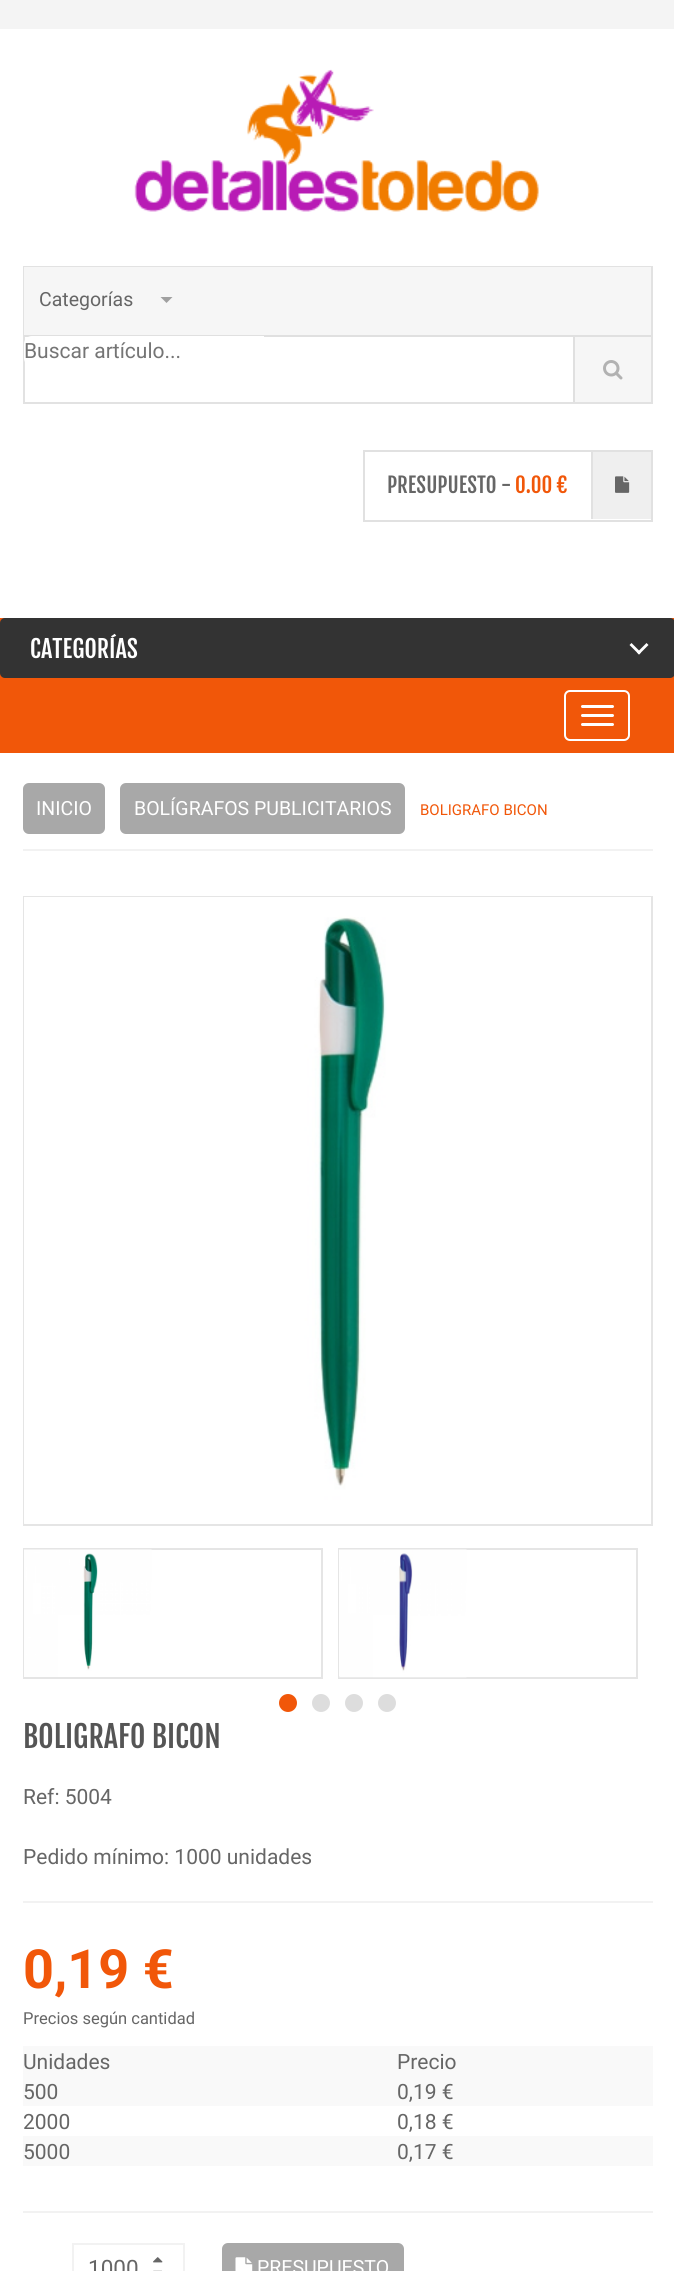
import math
import cairo

surface = cairo.ImageSurface(cairo.FORMAT_RGB24, 674, 2271)
ctx = cairo.Context(surface)
options = cairo.FontOptions()
options.set_hint_metrics(cairo.HINT_METRICS_OFF)
options.set_hint_style(cairo.HINT_STYLE_NONE)
ctx.set_font_options(options)
ctx.set_miter_limit(4)


def set_color(code):
    ctx.set_source_rgb(*(v / 255 for v in bytes.fromhex(code[-6:])))


def draw_text(x, y, s, family, size, color, bold=False, italic=False):
    ctx.select_font_face(family, cairo.FONT_SLANT_ITALIC if italic else cairo.FONT_SLANT_NORMAL, cairo.FONT_WEIGHT_BOLD if bold else cairo.FONT_WEIGHT_NORMAL)
    ctx.set_font_size(size)
    set_color(color)
    ctx.move_to(x, y)
    ctx.show_text(s)


def fill_rect(x, y, w, h, color):
    set_color(color)
    ctx.rectangle(x, y, w, h)
    ctx.fill()


def rounded_rect(x, y, w, h, r):
    ctx.new_sub_path()
    for i, (u, v) in enumerate([(x + w - r, y + h - r), (x + r, y + h - r), (x + r, y + r), (x + w - r, y + r)]):
        ctx.arc(u, v, r, i * math.pi / 2, (i + 1) * math.pi / 2)
    ctx.close_path()


def draw_image(path, x, y, w, h):
    ctx.save()
    ctx.set_source_surface(cairo.ImageSurface.create_from_png(path), x, y)
    ctx.rectangle(x, y, w, h)
    ctx.fill()
    ctx.restore()


set_color("#ffffff")
ctx.paint()
fill_rect(0, 0, 674, 29, "#f4f4f4")
draw_image("assets/img1.png", 134, 69, 405, 143)
ctx.rectangle(24, 267, 628, 136)
set_color("#e2e2e2")
ctx.stroke()
fill_rect(24, 267, 627, 68, "#f6f6f6")
fill_rect(573, 336, 2, 66, "#e0e0e0")
fill_rect(24, 335, 627, 2, "#e0e0e0")
draw_text(39, 306, "Categorías", "Roboto", 19.5, "#666666")
set_color("#a0a0a0")
ctx.new_path()
ctx.move_to(160.5, 297)
ctx.line_to(172.5, 297)
ctx.line_to(166.5, 303)
ctx.close_path()
ctx.fill()
set_color("#ffffff")
ctx.new_path()
ctx.move_to(32, 336)
ctx.line_to(264, 336)
ctx.line_to(264, 366)
ctx.line_to(32, 366)
ctx.curve_to(27.5, 366, 24, 362.5, 24, 358)
ctx.line_to(24, 344)
ctx.curve_to(24, 339.5, 27.5, 336, 32, 336)
ctx.close_path()
ctx.fill()
draw_text(24, 358, "Buscar artículo...", "Roboto", 21, "#757575")
fill_rect(575, 337, 76, 65, "#f6f6f6")
draw_image("assets/img2.png", 603, 360, 20, 20)
ctx.rectangle(364, 451, 288, 70)
set_color("#e1e1e1")
ctx.stroke()
draw_text(387, 493, "PRESUPUESTO -", "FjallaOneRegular", 21, "#666666")
draw_text(515, 493, "0.00 €", "FjallaOneRegular", 21, "#f15709")
fill_rect(593, 452, 58, 67, "#efefef")
fill_rect(591, 452, 2, 67, "#e1e1e1")
draw_image("assets/img3.png", 615, 476, 15, 17)
fill_rect(0, 618, 674, 135, "#f15709")
set_color("#333333")
rounded_rect(0, 618, 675, 60, 5)
ctx.fill()
draw_text(30, 658, "CATEGORÍAS", "FjallaOneRegular", 24, "#ffffff")
ctx.new_path()
ctx.move_to(631.5, 643)
ctx.line_to(641, 652.5)
ctx.line_to(639, 654.5)
ctx.line_to(629.5, 645)
ctx.close_path()
ctx.fill()
ctx.new_path()
ctx.move_to(637, 652.5)
ctx.line_to(646.5, 643)
ctx.line_to(648.5, 645)
ctx.line_to(639, 654.5)
ctx.close_path()
ctx.fill()
rounded_rect(565, 691, 64, 49, 5)
ctx.stroke()
rounded_rect(581, 705, 33, 3, 1.5)
ctx.fill()
rounded_rect(581, 714, 33, 3, 1.5)
ctx.fill()
rounded_rect(581, 723, 33, 3, 1.5)
ctx.fill()
fill_rect(23, 849, 630, 2, "#f2f2f2")
set_color("#a8a8a8")
rounded_rect(23, 783, 82, 51, 6)
ctx.fill()
draw_text(36, 815, "INICIO", "Roboto", 19.5, "#ffffff")
set_color("#a8a8a8")
rounded_rect(120, 783, 285, 51, 6)
ctx.fill()
draw_text(134, 815, "BOLÍGRAFOS PUBLICITARIOS", "Roboto", 19.5, "#ffffff")
draw_text(420, 815, "BOLIGRAFO BICON", "Roboto", 15, "#f15709")
ctx.rectangle(24, 897, 628, 628)
set_color("#e5e5e5")
ctx.stroke()
draw_image("assets/img4.png", 24, 897, 627, 627)
ctx.rectangle(24, 1549, 298, 129)
ctx.stroke()
draw_image("assets/img5.png", 24, 1549, 128, 128)
ctx.rectangle(339, 1549, 298, 129)
ctx.stroke()
draw_image("assets/img6.png", 339, 1549, 128, 129)
set_color("#f15709")
ctx.arc(288, 1703, 9, 0, 2 * math.pi)
ctx.fill()
set_color("#dddddd")
ctx.arc(321, 1703, 9, 0, 2 * math.pi)
ctx.fill()
ctx.arc(354, 1703, 9, 0, 2 * math.pi)
ctx.fill()
ctx.arc(387, 1703, 9, 0, 2 * math.pi)
ctx.fill()
draw_text(23, 1748, "BOLIGRAFO BICON", "FjallaOneRegular", 30, "#555555")
draw_text(23, 1804, "Ref: 5004", "Roboto", 21, "#666666")
draw_text(23, 1864, "Pedido mínimo: 1000 unidades", "Roboto", 21, "#666666")
fill_rect(23, 1901, 630, 2, "#f2f2f2")
fill_rect(23, 2211, 630, 2, "#f2f2f2")
draw_text(23, 1988, "0,19 €", "Roboto", 54, "#f15709", bold=True)
draw_text(23, 2024, "Precios según cantidad", "Roboto", 16.5, "#666666")
fill_rect(23, 2046, 630, 60, "#f9f9f9")
draw_text(23, 2069, "Unidades", "Roboto", 21, "#666666")
draw_text(397, 2069, "Precio", "Roboto", 21, "#666666")
draw_text(23, 2099, "500", "Roboto", 21, "#666666")
draw_text(397, 2099, "0,19 €", "Roboto", 21, "#666666")
draw_text(23, 2129, "2000", "Roboto", 21, "#666666")
draw_text(397, 2129, "0,18 €", "Roboto", 21, "#666666")
fill_rect(23, 2136, 630, 30, "#f9f9f9")
draw_text(23, 2159, "5000", "Roboto", 21, "#666666")
draw_text(397, 2159, "0,17 €", "Roboto", 21, "#666666")
ctx.rectangle(73, 2244, 111, 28)
set_color("#f2f2f2")
ctx.stroke()
draw_text(88, 2276, "1000", "Roboto", 22.5, "#666666")
draw_image("assets/img7.png", 153, 2257, 10, 6)
draw_image("assets/img8.png", 153, 2270, 9, 1)
set_color("#a8a8a8")
rounded_rect(222, 2243, 182, 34, 6)
ctx.fill()
draw_image("assets/img9.png", 235, 2257, 18, 14)
draw_text(257, 2274, "PRESUPUESTO", "Roboto", 19.5, "#ffffff")
surface.write_to_png("output.png")
